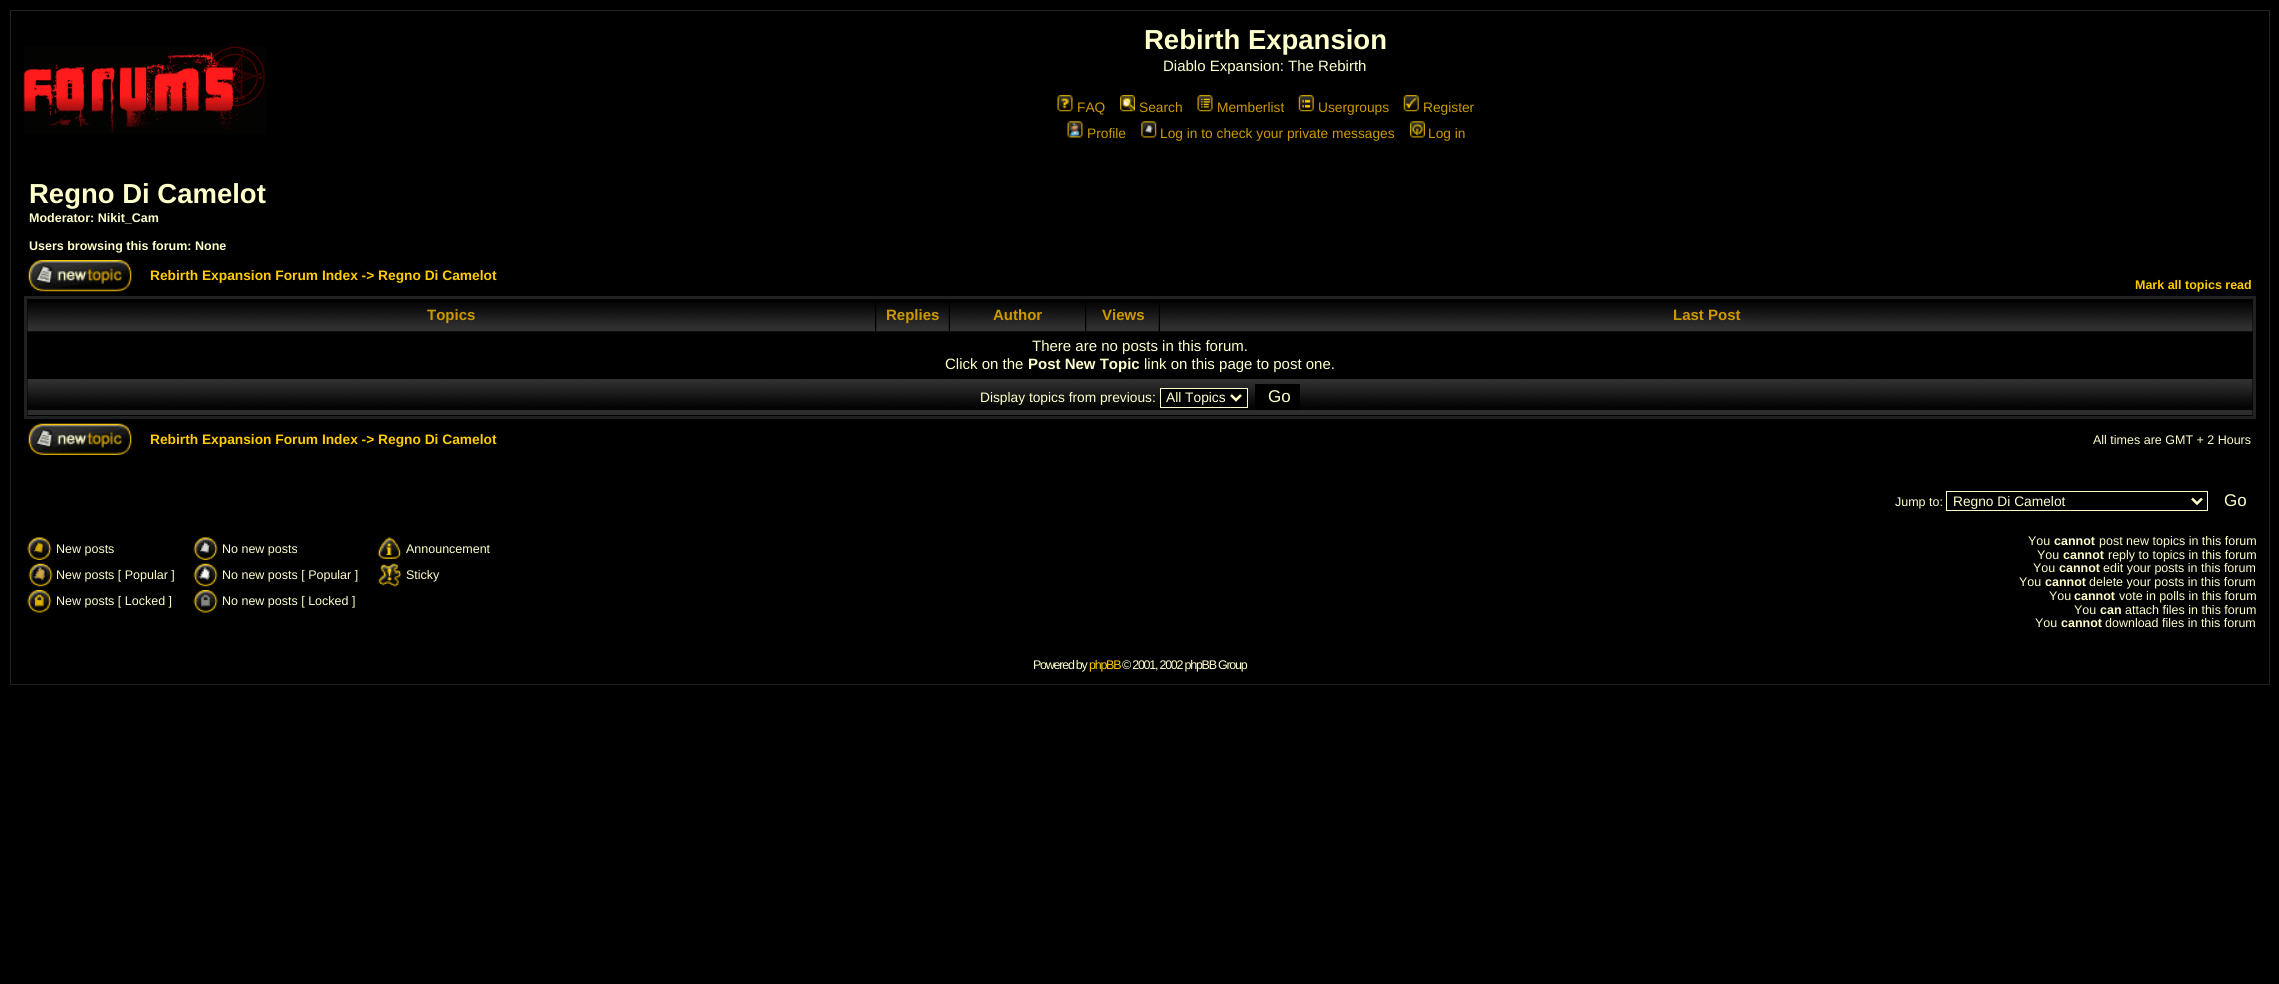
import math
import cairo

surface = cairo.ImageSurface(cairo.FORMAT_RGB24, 2279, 984)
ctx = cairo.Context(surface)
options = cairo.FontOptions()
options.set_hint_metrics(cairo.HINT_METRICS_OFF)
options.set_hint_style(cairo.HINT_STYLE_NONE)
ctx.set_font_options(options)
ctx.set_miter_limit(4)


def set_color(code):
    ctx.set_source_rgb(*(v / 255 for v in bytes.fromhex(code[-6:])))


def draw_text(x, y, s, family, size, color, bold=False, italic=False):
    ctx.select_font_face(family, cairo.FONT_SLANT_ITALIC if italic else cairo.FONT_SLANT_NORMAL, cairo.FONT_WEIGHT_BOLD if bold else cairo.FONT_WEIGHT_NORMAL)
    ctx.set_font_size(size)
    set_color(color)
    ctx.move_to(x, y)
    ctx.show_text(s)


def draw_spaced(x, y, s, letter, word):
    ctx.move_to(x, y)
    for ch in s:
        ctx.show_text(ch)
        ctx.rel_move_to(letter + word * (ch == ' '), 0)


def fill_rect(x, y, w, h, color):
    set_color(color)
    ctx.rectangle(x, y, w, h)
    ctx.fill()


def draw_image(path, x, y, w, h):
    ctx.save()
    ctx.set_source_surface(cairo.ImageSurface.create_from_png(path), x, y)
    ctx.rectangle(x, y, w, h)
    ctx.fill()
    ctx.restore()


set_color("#000000")
ctx.paint()
ctx.rectangle(10.5, 10.5, 2259, 674)
set_color("#212121")
ctx.set_line_width(1)
ctx.stroke()
draw_image("assets/img1.png", 23, 46, 243, 88)
draw_text(1144, 49, "Rebirth Expansion", "Liberation Sans", 27.5, "#ffffcc", bold=True)
draw_text(1163, 71, "Diablo Expansion: The Rebirth", "Liberation Sans", 15, "#ffffcc")
draw_image("assets/img2.png", 1057, 95, 16, 17)
draw_text(1077, 112, "FAQ", "Liberation Sans", 13.75, "#cc9900")
draw_image("assets/img3.png", 1120, 95, 15, 17)
draw_text(1139, 112, "Search", "Liberation Sans", 13.75, "#cc9900")
draw_image("assets/img4.png", 1197, 95, 16, 17)
draw_text(1217, 112, "Memberlist", "Liberation Sans", 13.75, "#cc9900")
draw_image("assets/img5.png", 1298, 95, 16, 17)
draw_text(1318, 112, "Usergroups", "Liberation Sans", 13.75, "#cc9900")
draw_image("assets/img6.png", 1403, 95, 16, 17)
draw_text(1423, 112, "Register", "Liberation Sans", 13.75, "#cc9900")
draw_image("assets/img7.png", 1067, 121, 16, 17)
draw_text(1087, 138, "Profile", "Liberation Sans", 13.75, "#cc9900")
draw_image("assets/img8.png", 1141, 121, 16, 17)
draw_text(1160, 138, "Log in to check your private messages", "Liberation Sans", 13.75, "#cc9900")
draw_image("assets/img9.png", 1410, 121, 15, 17)
draw_text(1428, 138, "Log in", "Liberation Sans", 13.75, "#cc9900")
draw_text(29, 203, "Regno Di Camelot", "Liberation Sans", 27.5, "#ffffcc", bold=True)
draw_text(29, 222, "Moderator: Nikit_Cam", "Liberation Sans", 12.5, "#ffffcc", bold=True)
draw_text(29, 250, "Users browsing this forum: None", "Liberation Sans", 12.5, "#ffffcc", bold=True)
draw_image("assets/img10.png", 28, 260, 104, 32)
draw_text(150, 280, "Rebirth Expansion Forum Index -> Regno Di Camelot", "Liberation Sans", 13.75, "#ffcc00", bold=True)
draw_text(2135, 289, "Mark all topics read", "Liberation Sans", 12.5, "#ffcc00", bold=True)
ctx.rectangle(25.5, 297.5, 2229, 120)
set_color("#212121")
ctx.set_line_width(3)
ctx.stroke()
draw_image("assets/img11.png", 27, 302, 848, 30)
draw_text(427, 320, "Topics", "Liberation Sans", 15, "#cc9900", bold=True)
draw_image("assets/img12.png", 876, 302, 73, 30)
draw_text(886, 320, "Replies", "Liberation Sans", 15, "#cc9900", bold=True)
draw_image("assets/img13.png", 950, 302, 135, 30)
draw_text(993, 320, "Author", "Liberation Sans", 15, "#cc9900", bold=True)
draw_image("assets/img14.png", 1086, 302, 73, 30)
draw_text(1102, 320, "Views", "Liberation Sans", 15, "#cc9900", bold=True)
draw_image("assets/img15.png", 1160, 302, 1093, 30)
draw_text(1673, 320, "Last Post", "Liberation Sans", 15, "#cc9900", bold=True)
draw_text(1032, 351, "There are no posts in this forum.", "Liberation Sans", 15, "#ffffcc")
draw_text(945, 369, "Click on the", "Liberation Sans", 15, "#ffffcc")
draw_text(1028, 369, "Post New Topic", "Liberation Sans", 15, "#ffffcc", bold=True)
draw_text(1144, 369, "link on this page to post one.", "Liberation Sans", 15, "#ffffcc")
draw_image("assets/img16.png", 27, 379, 2226, 36)
draw_text(980, 402, "Display topics from previous:", "Liberation Sans", 13.75, "#ffffcc")
set_color("#000000")
ctx.rectangle(1160.5, 388.5, 87, 19)
ctx.fill_preserve()
set_color("#ffffcc")
ctx.set_line_width(1)
ctx.stroke()
ctx.new_path()
ctx.move_to(1231, 395)
ctx.line_to(1236, 400)
ctx.line_to(1241, 395)
ctx.set_line_width(2.5)
ctx.stroke()
draw_text(1166, 402, "All Topics", "Liberation Sans", 13.75, "#ffffcc")
fill_rect(1255, 384, 45, 26, "#000000")
draw_text(1268, 402, "Go", "Liberation Sans", 17, "#ffffcc")
draw_image("assets/img17.png", 28, 423, 104, 32)
draw_text(150, 444, "Rebirth Expansion Forum Index -> Regno Di Camelot", "Liberation Sans", 13.75, "#ffcc00", bold=True)
draw_text(2093, 444, "All times are GMT + 2 Hours", "Liberation Sans", 12.5, "#ffffcc")
draw_text(1895, 506, "Jump to:", "Liberation Sans", 12.5, "#ffffcc")
ctx.rectangle(1946.5, 491.5, 261, 19)
ctx.set_line_width(1)
ctx.stroke()
ctx.new_path()
ctx.move_to(2192, 498.5)
ctx.line_to(2197, 503.5)
ctx.line_to(2202, 498.5)
ctx.set_line_width(2.5)
ctx.stroke()
draw_text(1953, 506, "Regno Di Camelot", "Liberation Sans", 13.75, "#ffffcc")
draw_text(2224, 506, "Go", "Liberation Sans", 17, "#ffffcc")
draw_image("assets/img18.png", 27, 537, 25, 23)
draw_text(56, 553, "New posts", "Liberation Sans", 12.5, "#ffffcc")
draw_image("assets/img19.png", 193, 537, 25, 23)
draw_text(222, 553, "No new posts", "Liberation Sans", 12.5, "#ffffcc")
draw_image("assets/img20.png", 377, 537, 25, 22)
draw_text(406, 553, "Announcement", "Liberation Sans", 12.5, "#ffffcc")
draw_image("assets/img21.png", 28, 563, 25, 24)
draw_text(56, 579, "New posts [ Popular ]", "Liberation Sans", 12.5, "#ffffcc")
draw_image("assets/img22.png", 193, 563, 25, 24)
draw_text(222, 579, "No new posts [ Popular ]", "Liberation Sans", 12.5, "#ffffcc")
draw_image("assets/img23.png", 378, 563, 24, 24)
draw_text(406, 579, "Sticky", "Liberation Sans", 12.5, "#ffffcc")
draw_image("assets/img24.png", 27, 590, 25, 23)
draw_text(56, 605, "New posts [ Locked ]", "Liberation Sans", 12.5, "#ffffcc")
draw_image("assets/img25.png", 193, 590, 25, 23)
draw_text(222, 605, "No new posts [ Locked ]", "Liberation Sans", 12.5, "#ffffcc")
draw_text(2028, 545, "You", "Liberation Sans", 12.5, "#ffffcc")
draw_text(2054, 545, "cannot", "Liberation Sans", 12.5, "#ffffcc", bold=True)
draw_text(2099, 545, "post new topics in this forum", "Liberation Sans", 12.5, "#ffffcc")
draw_text(2037, 559, "You", "Liberation Sans", 12.5, "#ffffcc")
draw_text(2063, 559, "cannot", "Liberation Sans", 12.5, "#ffffcc", bold=True)
draw_text(2108, 559, "reply to topics in this forum", "Liberation Sans", 12.5, "#ffffcc")
draw_text(2033, 572, "You", "Liberation Sans", 12.5, "#ffffcc")
draw_text(2059, 572, "cannot", "Liberation Sans", 12.5, "#ffffcc", bold=True)
draw_text(2103, 572, "edit your posts in this forum", "Liberation Sans", 12.5, "#ffffcc")
draw_text(2019, 586, "You", "Liberation Sans", 12.5, "#ffffcc")
draw_text(2045, 586, "cannot", "Liberation Sans", 12.5, "#ffffcc", bold=True)
draw_text(2089, 586, "delete your posts in this forum", "Liberation Sans", 12.5, "#ffffcc")
draw_text(2049, 600, "You", "Liberation Sans", 12.5, "#ffffcc")
draw_text(2074, 600, "cannot", "Liberation Sans", 12.5, "#ffffcc", bold=True)
draw_text(2119, 600, "vote in polls in this forum", "Liberation Sans", 12.5, "#ffffcc")
draw_text(2074, 614, "You", "Liberation Sans", 12.5, "#ffffcc")
draw_text(2100, 614, "can", "Liberation Sans", 12.5, "#ffffcc", bold=True)
draw_text(2125, 614, "attach files in this forum", "Liberation Sans", 12.5, "#ffffcc")
draw_text(2035, 627, "You", "Liberation Sans", 12.5, "#ffffcc")
draw_text(2061, 627, "cannot", "Liberation Sans", 12.5, "#ffffcc", bold=True)
draw_text(2105, 627, "download files in this forum", "Liberation Sans", 12.5, "#ffffcc")
draw_spaced(1033, 669, "Powered by", -1.25, 0)
set_color("#ffcc00")
draw_spaced(1089, 669, "phpBB", -1.25, 0)
set_color("#ffffcc")
draw_spaced(1122, 669, "© 2001, 2002 phpBB Group", -1.25, 0)
surface.write_to_png("output.png")
